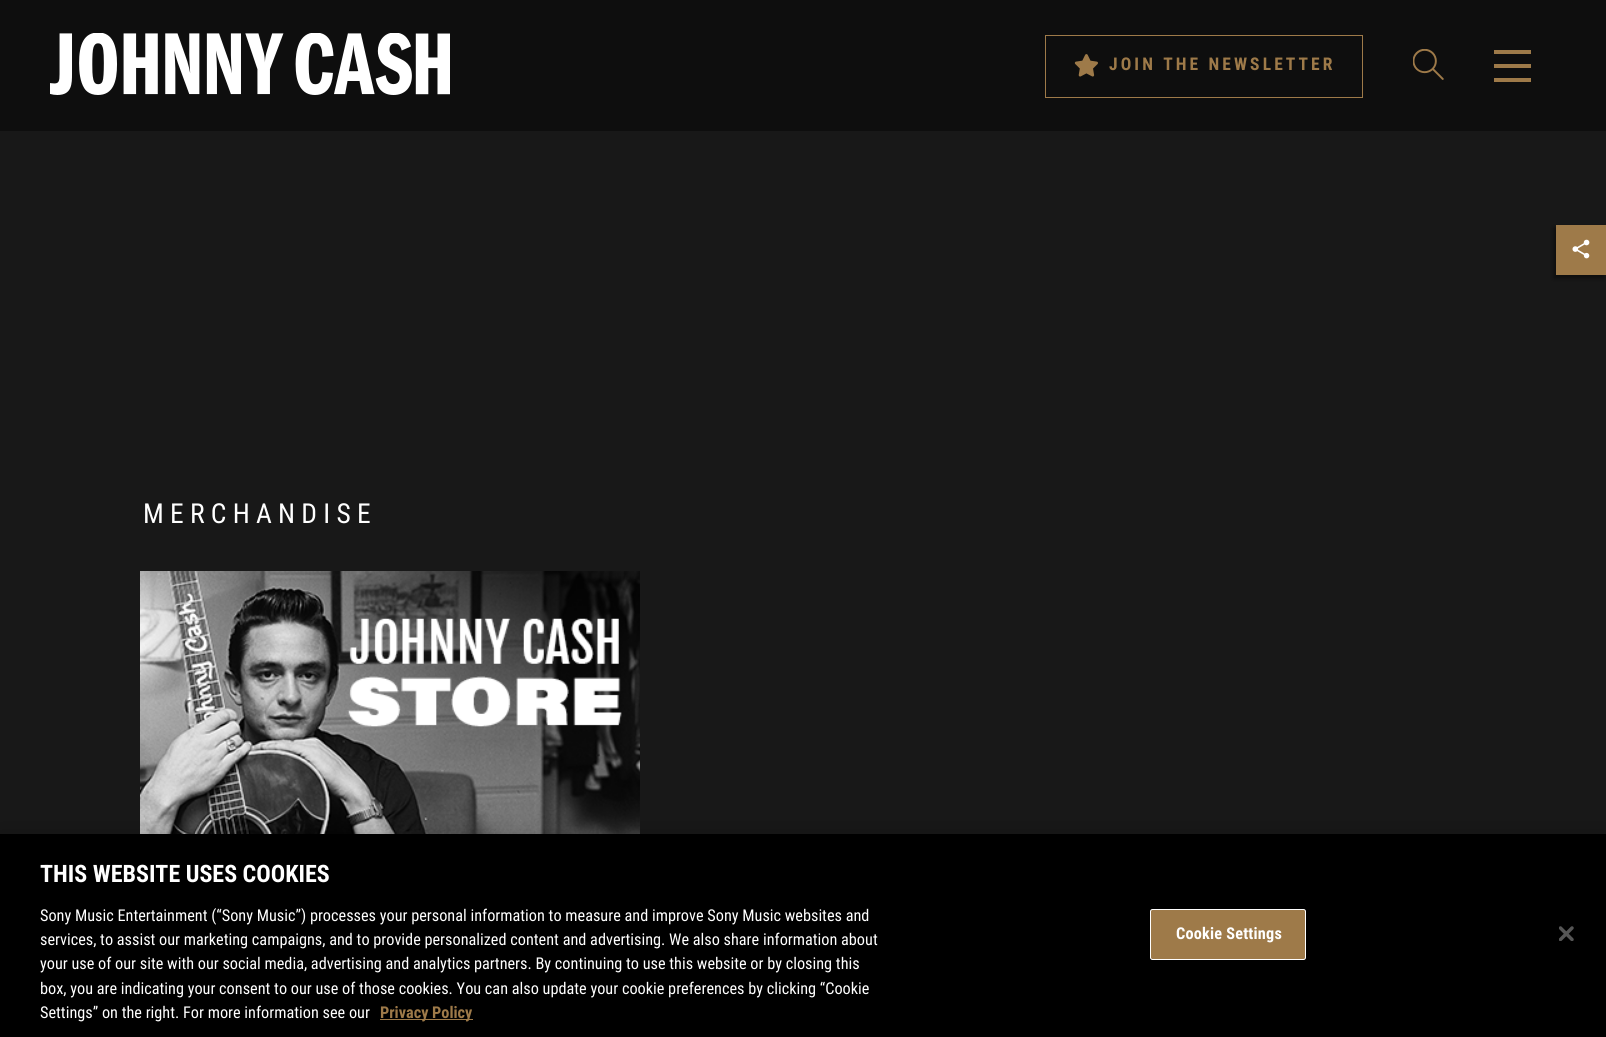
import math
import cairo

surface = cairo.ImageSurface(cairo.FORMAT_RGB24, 1606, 1037)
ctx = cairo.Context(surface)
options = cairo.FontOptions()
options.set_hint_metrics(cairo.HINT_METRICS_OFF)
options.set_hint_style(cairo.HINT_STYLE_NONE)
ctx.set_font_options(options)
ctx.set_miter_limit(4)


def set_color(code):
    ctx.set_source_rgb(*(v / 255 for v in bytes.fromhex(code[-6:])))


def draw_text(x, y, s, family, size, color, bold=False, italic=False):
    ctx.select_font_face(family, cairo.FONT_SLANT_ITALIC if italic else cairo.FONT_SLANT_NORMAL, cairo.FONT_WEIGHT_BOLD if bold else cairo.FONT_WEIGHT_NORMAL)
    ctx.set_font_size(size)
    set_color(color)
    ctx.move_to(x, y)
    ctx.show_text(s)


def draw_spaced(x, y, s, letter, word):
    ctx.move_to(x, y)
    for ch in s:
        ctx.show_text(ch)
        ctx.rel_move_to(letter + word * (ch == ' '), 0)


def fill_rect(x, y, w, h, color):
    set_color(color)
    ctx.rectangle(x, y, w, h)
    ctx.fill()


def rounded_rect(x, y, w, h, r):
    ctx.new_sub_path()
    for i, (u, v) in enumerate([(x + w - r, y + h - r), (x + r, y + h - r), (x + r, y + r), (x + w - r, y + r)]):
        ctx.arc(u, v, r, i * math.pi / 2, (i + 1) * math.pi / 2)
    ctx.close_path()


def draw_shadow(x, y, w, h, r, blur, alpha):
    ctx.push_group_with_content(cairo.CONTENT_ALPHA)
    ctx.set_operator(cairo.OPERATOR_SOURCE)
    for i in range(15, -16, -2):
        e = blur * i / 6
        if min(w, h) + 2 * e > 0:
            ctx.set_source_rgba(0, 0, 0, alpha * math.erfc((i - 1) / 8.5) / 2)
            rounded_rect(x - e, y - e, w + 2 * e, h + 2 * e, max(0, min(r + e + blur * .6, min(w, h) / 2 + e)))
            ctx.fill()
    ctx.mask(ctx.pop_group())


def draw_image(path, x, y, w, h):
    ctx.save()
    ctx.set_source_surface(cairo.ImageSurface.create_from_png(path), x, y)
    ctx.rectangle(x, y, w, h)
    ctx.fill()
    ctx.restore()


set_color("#181818")
ctx.paint()
fill_rect(0, 0, 1606, 131, "#0e0e0e")
draw_image("assets/img1.png", 50, 33, 400, 62)
ctx.rectangle(1045.5, 35.5, 317, 62)
set_color("#9e7a49")
ctx.set_line_width(1)
ctx.stroke()
draw_image("assets/img2.png", 1074, 54, 24, 23)
ctx.select_font_face("Roboto Condensed", cairo.FONT_SLANT_NORMAL, cairo.FONT_WEIGHT_BOLD)
ctx.set_font_size(17.5)
draw_spaced(1109, 70, "JOIN THE NEWSLETTER", 3.1, 0)
draw_image("assets/img3.png", 1413, 49, 31, 31)
fill_rect(1494, 50, 37, 4, "#9e7a49")
fill_rect(1494, 64, 37, 4, "#9e7a49")
fill_rect(1494, 78, 37, 4, "#9e7a49")
set_color("#000000")
draw_shadow(1554, 228, 50, 50, 0, 2.5, 0.5)
fill_rect(1556, 225, 50, 50, "#9e7a49")
draw_image("assets/img4.png", 1572, 239, 18, 20)
ctx.select_font_face("Roboto Condensed")
ctx.set_font_size(27.5)
set_color("#ffffff")
draw_spaced(143, 523, "MERCHANDISE", 6.25, 0)
draw_image("assets/img5.png", 140, 571, 500, 263)
set_color("#000000")
draw_shadow(0, 834, 1606, 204, 0, 11, 0.2)
fill_rect(0, 834, 1606, 203, "#000000")
draw_text(40, 882, "THIS WEBSITE USES COOKIES", "Roboto Condensed", 24, "#ffffff", bold=True)
draw_text(40, 921, "Sony Music Entertainment (“Sony Music”) processes your personal information to measure and improve Sony Music websites and", "Roboto Condensed", 16.25, "#ffffff")
draw_text(40, 945, "services, to assist our marketing campaigns, and to provide personalized content and advertising. We also share information about", "Roboto Condensed", 16.25, "#ffffff")
draw_text(40, 969, "your use of our site with our social media, advertising and analytics partners. By continuing to use this website or by closing this", "Roboto Condensed", 16.25, "#ffffff")
draw_text(40, 994, "box, you are indicating your consent to our use of those cookies. You can also update your cookie preferences by clicking “Cookie", "Roboto Condensed", 16.25, "#ffffff")
draw_text(40, 1018, "Settings” on the right. For more information see our", "Roboto Condensed", 16.25, "#ffffff")
fill_rect(380, 1019, 93, 1, "#9e7a49")
draw_text(380, 1018, "Privacy Policy", "Roboto Condensed", 16.25, "#9e7a49", bold=True)
rounded_rect(1150.5, 909.5, 155, 50, 2)
ctx.fill_preserve()
set_color("#ffffff")
ctx.stroke()
draw_spaced(1176, 939, "Cookie Settings", 0.2, 0)
draw_image("assets/img6.png", 1559, 926, 15, 15)
surface.write_to_png("output.png")
